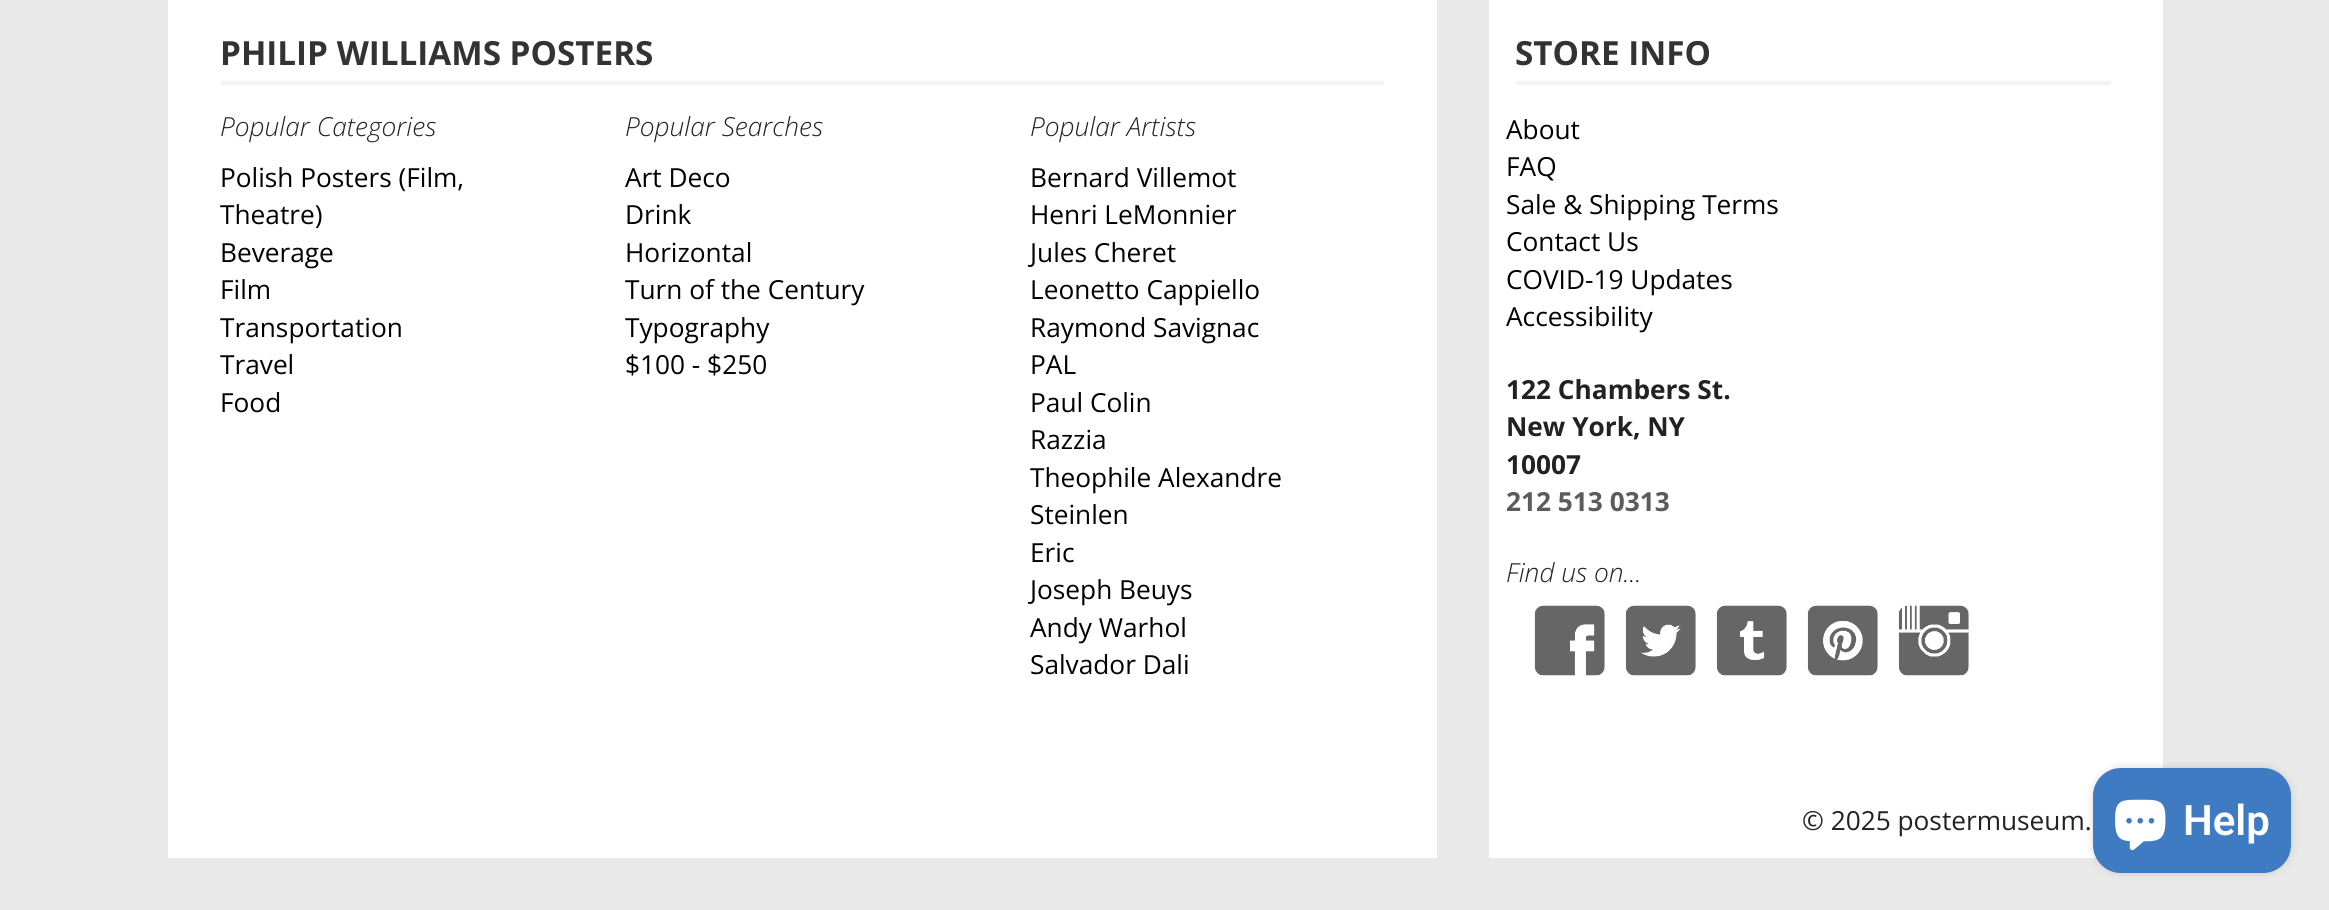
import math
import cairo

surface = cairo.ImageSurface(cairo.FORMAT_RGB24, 2329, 910)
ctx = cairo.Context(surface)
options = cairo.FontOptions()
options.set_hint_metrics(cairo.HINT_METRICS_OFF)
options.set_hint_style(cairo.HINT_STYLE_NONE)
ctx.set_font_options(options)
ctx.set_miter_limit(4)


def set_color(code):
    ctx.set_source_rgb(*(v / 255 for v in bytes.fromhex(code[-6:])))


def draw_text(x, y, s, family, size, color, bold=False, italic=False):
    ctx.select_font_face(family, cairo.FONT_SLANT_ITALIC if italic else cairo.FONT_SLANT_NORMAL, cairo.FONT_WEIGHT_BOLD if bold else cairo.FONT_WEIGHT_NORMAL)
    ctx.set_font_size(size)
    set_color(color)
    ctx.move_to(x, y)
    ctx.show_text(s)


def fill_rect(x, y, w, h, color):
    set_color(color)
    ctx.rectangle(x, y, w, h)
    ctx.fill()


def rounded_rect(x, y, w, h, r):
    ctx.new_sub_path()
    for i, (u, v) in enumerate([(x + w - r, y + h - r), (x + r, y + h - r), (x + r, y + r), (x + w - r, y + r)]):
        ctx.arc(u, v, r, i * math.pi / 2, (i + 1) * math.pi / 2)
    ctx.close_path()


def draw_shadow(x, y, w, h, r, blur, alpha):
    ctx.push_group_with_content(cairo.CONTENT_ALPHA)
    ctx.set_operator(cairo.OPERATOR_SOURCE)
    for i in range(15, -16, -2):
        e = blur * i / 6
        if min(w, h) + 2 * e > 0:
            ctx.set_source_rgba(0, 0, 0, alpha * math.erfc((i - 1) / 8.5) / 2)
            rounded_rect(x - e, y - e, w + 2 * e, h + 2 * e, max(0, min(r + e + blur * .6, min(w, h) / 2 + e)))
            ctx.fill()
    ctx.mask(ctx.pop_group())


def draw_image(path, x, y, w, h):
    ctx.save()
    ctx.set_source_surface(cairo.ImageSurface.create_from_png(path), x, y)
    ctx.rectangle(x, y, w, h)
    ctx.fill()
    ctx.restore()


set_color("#e9e9e9")
ctx.paint()
fill_rect(168, 0, 1995, 858, "#ffffff")
fill_rect(1437, 0, 52, 858, "#e9e9e9")
draw_text(220, 65, "PHILIP WILLIAMS POSTERS", "Open Sans", 33.25, "#333333", bold=True)
fill_rect(221, 81, 1163, 4, "#f3f3f3")
draw_text(220, 136, "Popular Categories", "Open Sans Light", 26.25, "#222222", italic=True)
draw_text(220, 187, "Polish Posters (Film,", "Open Sans", 26.25, "#000000")
draw_text(220, 224, "Theatre)", "Open Sans", 26.25, "#000000")
draw_text(220, 262, "Beverage", "Open Sans", 26.25, "#000000")
draw_text(220, 299, "Film", "Open Sans", 26.25, "#000000")
draw_text(220, 337, "Transportation", "Open Sans", 26.25, "#000000")
draw_text(220, 374, "Travel", "Open Sans", 26.25, "#000000")
draw_text(220, 412, "Food", "Open Sans", 26.25, "#000000")
draw_text(625, 136, "Popular Searches", "Open Sans Light", 26.25, "#222222", italic=True)
draw_text(625, 187, "Art Deco", "Open Sans", 26.25, "#000000")
draw_text(625, 224, "Drink", "Open Sans", 26.25, "#000000")
draw_text(625, 262, "Horizontal", "Open Sans", 26.25, "#000000")
draw_text(625, 299, "Turn of the Century", "Open Sans", 26.25, "#000000")
draw_text(625, 337, "Typography", "Open Sans", 26.25, "#000000")
draw_text(625, 374, "$100 - $250", "Open Sans", 26.25, "#000000")
draw_text(1030, 136, "Popular Artists", "Open Sans Light", 26.25, "#222222", italic=True)
draw_text(1030, 187, "Bernard Villemot", "Open Sans", 26.25, "#000000")
draw_text(1030, 224, "Henri LeMonnier", "Open Sans", 26.25, "#000000")
draw_text(1030, 262, "Jules Cheret", "Open Sans", 26.25, "#000000")
draw_text(1030, 299, "Leonetto Cappiello", "Open Sans", 26.25, "#000000")
draw_text(1030, 337, "Raymond Savignac", "Open Sans", 26.25, "#000000")
draw_text(1030, 374, "PAL", "Open Sans", 26.25, "#000000")
draw_text(1030, 412, "Paul Colin", "Open Sans", 26.25, "#000000")
draw_text(1030, 449, "Razzia", "Open Sans", 26.25, "#000000")
draw_text(1030, 487, "Theophile Alexandre", "Open Sans", 26.25, "#000000")
draw_text(1030, 524, "Steinlen", "Open Sans", 26.25, "#000000")
draw_text(1030, 562, "Eric", "Open Sans", 26.25, "#000000")
draw_text(1030, 599, "Joseph Beuys", "Open Sans", 26.25, "#000000")
draw_text(1030, 637, "Andy Warhol", "Open Sans", 26.25, "#000000")
draw_text(1030, 674, "Salvador Dali", "Open Sans", 26.25, "#000000")
draw_text(1515, 65, "STORE INFO", "Open Sans", 33.25, "#333333", bold=True)
fill_rect(1516, 81, 595, 4, "#f3f3f3")
draw_text(1506, 139, "About", "Open Sans", 26.25, "#000000")
draw_text(1506, 176, "FAQ", "Open Sans", 26.25, "#000000")
draw_text(1506, 214, "Sale & Shipping Terms", "Open Sans", 26.25, "#000000")
draw_text(1506, 251, "Contact Us", "Open Sans", 26.25, "#000000")
draw_text(1506, 289, "COVID-19 Updates", "Open Sans", 26.25, "#000000")
draw_text(1506, 326, "Accessibility", "Open Sans", 26.25, "#000000")
draw_text(1506, 399, "122 Chambers St.", "Open Sans", 26.25, "#222222", bold=True)
draw_text(1506, 436, "New York, NY", "Open Sans", 26.25, "#222222", bold=True)
draw_text(1506, 474, "10007", "Open Sans", 26.25, "#222222", bold=True)
draw_text(1506, 511, "212 513 0313", "Open Sans", 26.25, "#5c5c5c", bold=True)
draw_text(1506, 582, "Find us on...", "Open Sans Light", 26.25, "#222222", italic=True)
draw_image("assets/img1.png", 1534, 605, 71, 71)
draw_image("assets/img2.png", 1625, 605, 71, 71)
draw_image("assets/img3.png", 1716, 605, 71, 71)
draw_image("assets/img4.png", 1807, 605, 71, 71)
draw_image("assets/img5.png", 1898, 605, 71, 71)
draw_text(1802, 830, "© 2025 postermuseum.", "Open Sans", 26.25, "#222222")
set_color("#000000")
draw_shadow(2093, 768, 198, 105, 28, 4.5, 0.15)
set_color("#3e7bc3")
rounded_rect(2093, 768, 198, 105, 28)
ctx.fill()
draw_image("assets/img6.png", 2115, 799, 51, 52)
draw_text(2183, 835, "Help", "Roboto SemiBold", 42, "#ffffff")
surface.write_to_png("output.png")
